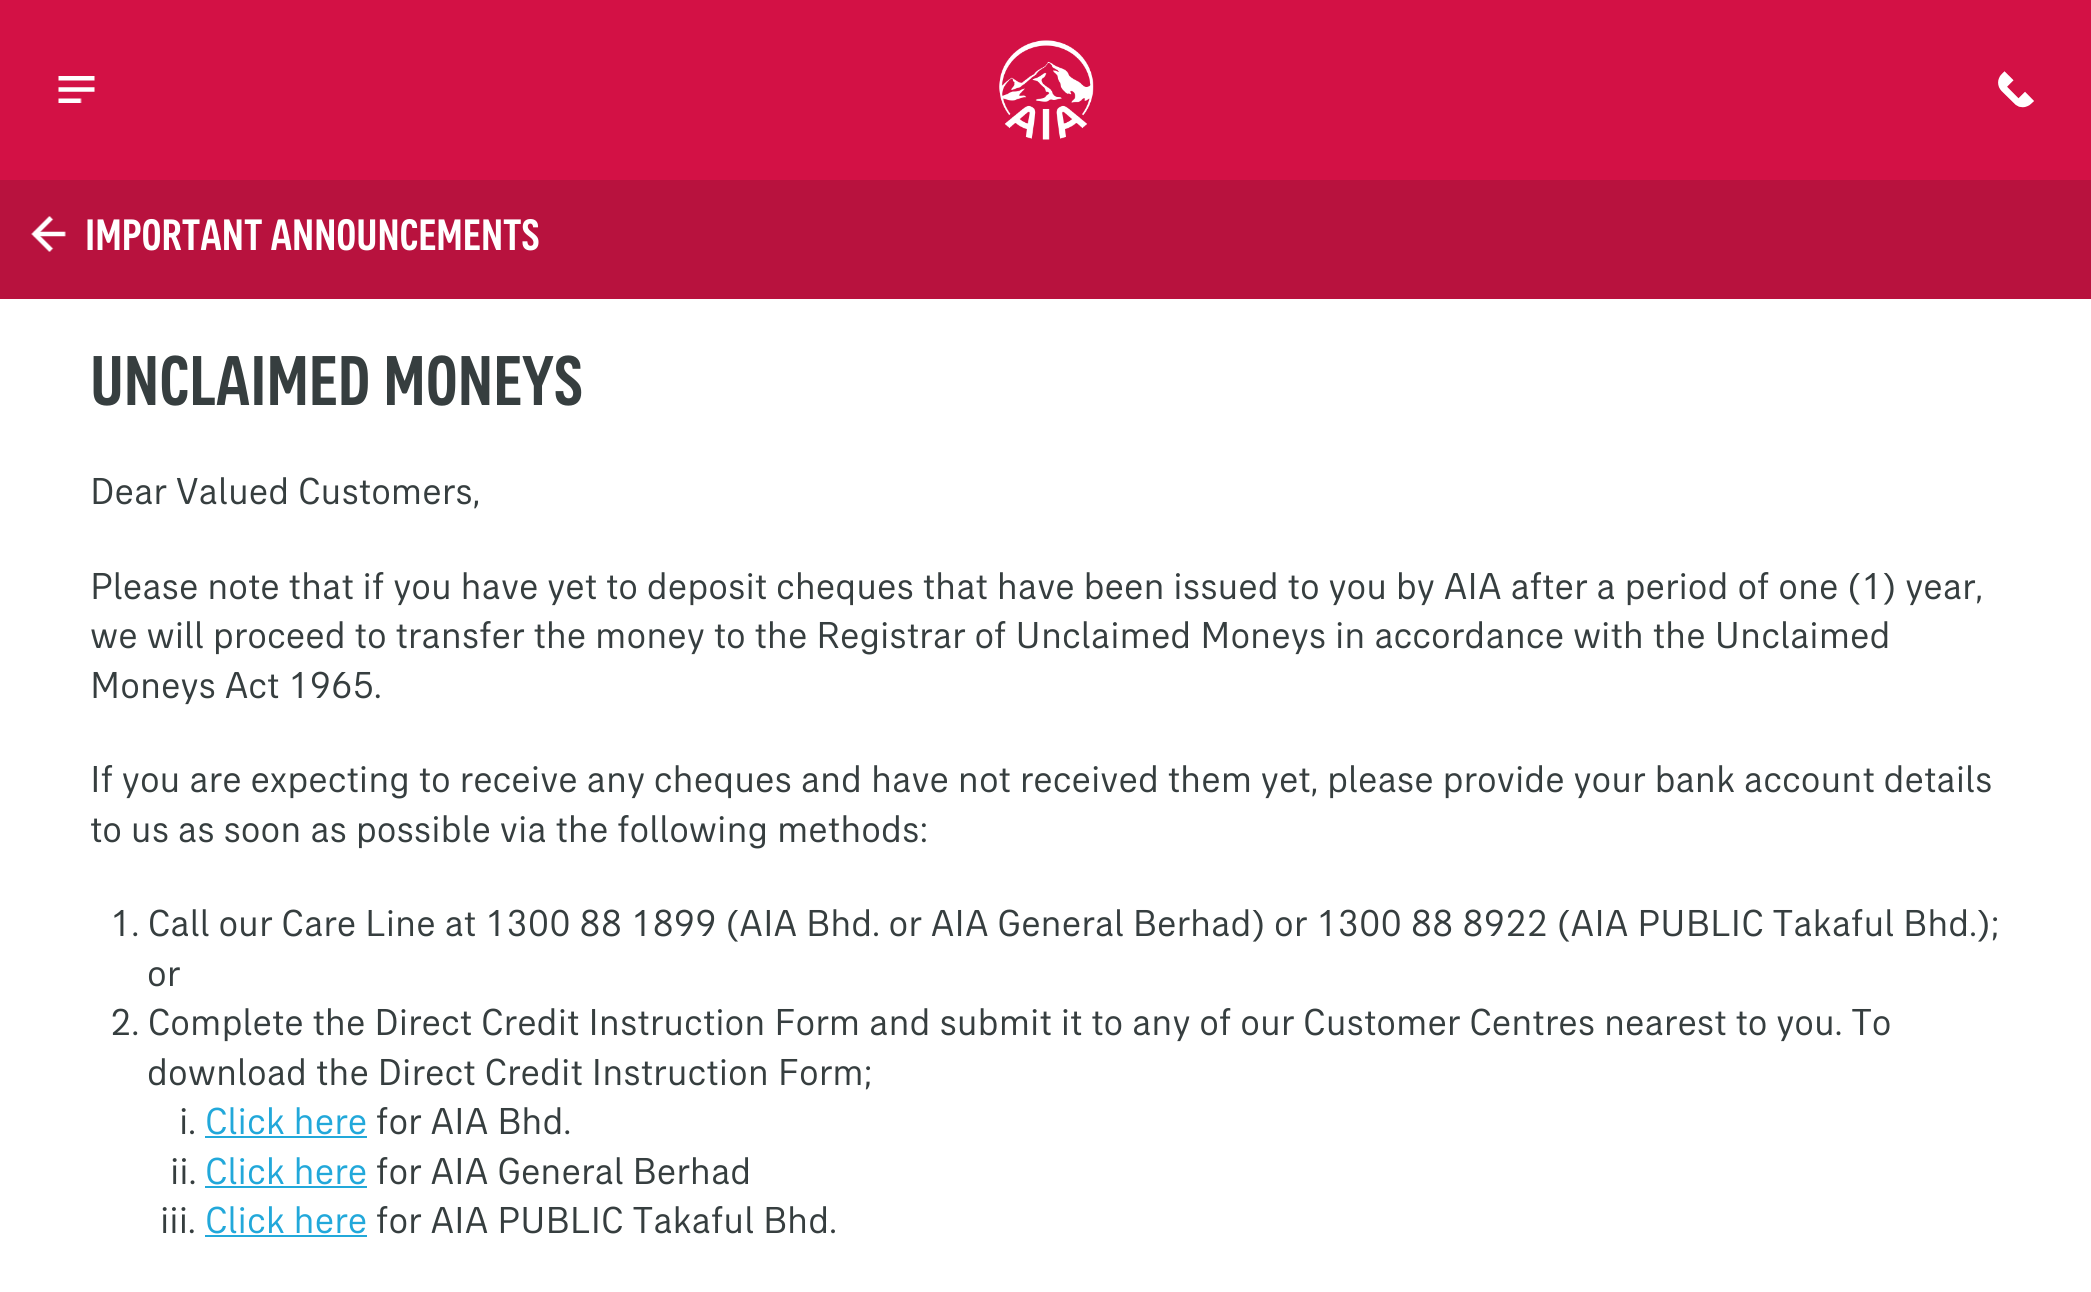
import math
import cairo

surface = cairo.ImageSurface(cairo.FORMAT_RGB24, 2091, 1292)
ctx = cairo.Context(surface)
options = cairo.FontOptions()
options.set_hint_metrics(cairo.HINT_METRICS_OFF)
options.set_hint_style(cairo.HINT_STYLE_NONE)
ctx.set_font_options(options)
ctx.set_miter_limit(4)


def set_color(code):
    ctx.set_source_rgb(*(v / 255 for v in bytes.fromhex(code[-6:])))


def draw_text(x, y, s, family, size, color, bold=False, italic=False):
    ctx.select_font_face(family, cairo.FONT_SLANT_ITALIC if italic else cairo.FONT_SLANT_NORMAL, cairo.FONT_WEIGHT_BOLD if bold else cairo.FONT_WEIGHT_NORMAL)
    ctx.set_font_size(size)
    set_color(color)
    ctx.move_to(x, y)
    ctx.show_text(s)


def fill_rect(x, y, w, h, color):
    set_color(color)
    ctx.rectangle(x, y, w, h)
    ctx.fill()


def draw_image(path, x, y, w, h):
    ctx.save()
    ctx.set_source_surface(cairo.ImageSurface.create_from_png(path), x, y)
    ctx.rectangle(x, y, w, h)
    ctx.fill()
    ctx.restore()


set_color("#ffffff")
ctx.paint()
fill_rect(0, 0, 2091, 180, "#d31145")
draw_image("assets/img1.png", 58, 76, 37, 27)
draw_image("assets/img2.png", 999, 40, 95, 100)
draw_image("assets/img3.png", 1998, 71, 36, 37)
fill_rect(0, 180, 2091, 119, "#b8123e")
draw_image("assets/img4.png", 31, 216, 35, 36)
draw_text(85, 250, "IMPORTANT ANNOUNCEMENTS", "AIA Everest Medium", 45, "#ffffff")
draw_text(90, 405, "UNCLAIMED MONEYS", "AIA Everest Medium", 72, "#363e3f")
draw_text(90, 504, "Dear Valued Customers,", "AIA Everest", 38.25, "#363e3f")
draw_text(90, 599, "Please note that if you have yet to deposit cheques that have been issued to you by AIA after a period of one (1) year,", "AIA Everest", 38.25, "#363e3f")
draw_text(90, 648, "we will proceed to transfer the money to the Registrar of Unclaimed Moneys in accordance with the Unclaimed", "AIA Everest", 38.25, "#363e3f")
draw_text(90, 698, "Moneys Act 1965.", "AIA Everest", 38.25, "#363e3f")
draw_text(90, 792, "If you are expecting to receive any cheques and have not received them yet, please provide your bank account details", "AIA Everest", 38.25, "#363e3f")
draw_text(90, 842, "to us as soon as possible via the following methods:", "AIA Everest", 38.25, "#363e3f")
draw_text(110, 936, "1. Call our Care Line at 1300 88 1899 (AIA Bhd. or AIA General Berhad) or 1300 88 8922 (AIA PUBLIC Takaful Bhd.);", "AIA Everest", 38.25, "#363e3f")
draw_text(147, 986, "or", "AIA Everest", 38.25, "#363e3f")
draw_text(110, 1035, "2. Complete the Direct Credit Instruction Form and submit it to any of our Customer Centres nearest to you. To", "AIA Everest", 38.25, "#363e3f")
draw_text(147, 1085, "download the Direct Credit Instruction Form;", "AIA Everest", 38.25, "#363e3f")
draw_text(179, 1134, "i.", "AIA Everest", 38.25, "#363e3f")
draw_text(205, 1134, "Click here", "AIA Everest", 38.25, "#22a8da")
fill_rect(205, 1136, 162, 2, "#22a8da")
draw_text(376, 1134, "for AIA Bhd.", "AIA Everest", 38.25, "#363e3f")
draw_text(170, 1184, "ii.", "AIA Everest", 38.25, "#363e3f")
draw_text(205, 1184, "Click here", "AIA Everest", 38.25, "#22a8da")
fill_rect(205, 1186, 162, 2, "#22a8da")
draw_text(376, 1184, "for AIA General Berhad", "AIA Everest", 38.25, "#363e3f")
draw_text(160, 1233, "iii.", "AIA Everest", 38.25, "#363e3f")
draw_text(205, 1233, "Click here", "AIA Everest", 38.25, "#22a8da")
fill_rect(205, 1235, 162, 2, "#22a8da")
draw_text(376, 1233, "for AIA PUBLIC Takaful Bhd.", "AIA Everest", 38.25, "#363e3f")
surface.write_to_png("output.png")
